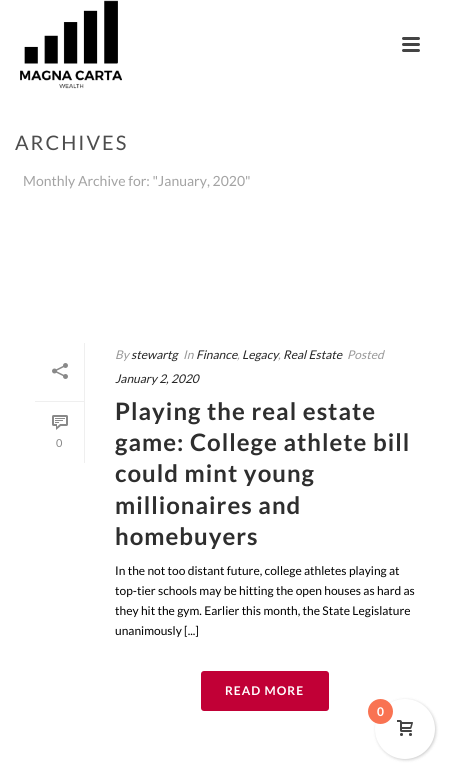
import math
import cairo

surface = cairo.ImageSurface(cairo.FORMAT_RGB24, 450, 774)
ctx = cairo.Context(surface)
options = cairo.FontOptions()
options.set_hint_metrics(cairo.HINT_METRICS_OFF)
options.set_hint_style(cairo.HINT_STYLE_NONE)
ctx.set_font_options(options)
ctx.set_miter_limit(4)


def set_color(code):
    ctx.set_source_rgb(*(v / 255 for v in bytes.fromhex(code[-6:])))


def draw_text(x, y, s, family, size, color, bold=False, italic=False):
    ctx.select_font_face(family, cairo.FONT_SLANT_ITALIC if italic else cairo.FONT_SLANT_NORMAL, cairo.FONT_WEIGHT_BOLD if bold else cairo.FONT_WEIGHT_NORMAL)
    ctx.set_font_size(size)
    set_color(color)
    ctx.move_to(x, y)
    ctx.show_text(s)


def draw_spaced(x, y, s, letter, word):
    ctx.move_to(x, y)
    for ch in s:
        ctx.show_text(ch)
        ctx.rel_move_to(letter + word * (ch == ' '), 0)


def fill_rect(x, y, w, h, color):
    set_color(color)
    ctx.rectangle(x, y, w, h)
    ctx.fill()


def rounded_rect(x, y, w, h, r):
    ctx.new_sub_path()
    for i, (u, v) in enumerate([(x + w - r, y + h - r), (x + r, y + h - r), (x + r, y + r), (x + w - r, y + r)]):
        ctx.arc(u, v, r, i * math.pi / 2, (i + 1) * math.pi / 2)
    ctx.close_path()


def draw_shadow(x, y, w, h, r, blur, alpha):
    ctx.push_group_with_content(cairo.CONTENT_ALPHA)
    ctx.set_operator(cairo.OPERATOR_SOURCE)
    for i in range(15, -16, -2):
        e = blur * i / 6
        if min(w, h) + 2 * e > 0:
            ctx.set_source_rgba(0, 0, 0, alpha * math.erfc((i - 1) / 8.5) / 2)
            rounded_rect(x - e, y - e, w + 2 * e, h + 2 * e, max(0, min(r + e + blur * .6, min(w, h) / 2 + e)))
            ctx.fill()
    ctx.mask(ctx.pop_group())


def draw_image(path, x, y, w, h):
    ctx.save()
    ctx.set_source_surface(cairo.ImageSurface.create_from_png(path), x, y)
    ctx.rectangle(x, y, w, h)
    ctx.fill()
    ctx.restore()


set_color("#ffffff")
ctx.paint()
draw_image("assets/img1.png", 20, 0, 102, 89)
set_color("#444444")
rounded_rect(402, 37, 18, 3, 1.5)
ctx.fill()
rounded_rect(402, 43, 18, 3, 1.5)
ctx.fill()
rounded_rect(402, 49, 18, 3, 1.5)
ctx.fill()
ctx.select_font_face("Lato")
ctx.set_font_size(20)
set_color("#4d4d4d")
draw_spaced(15, 150, "ARCHIVES", 2, 0)
draw_text(23, 186, "Monthly Archive for: \"January, 2020\"", "Lato", 14, "#a3a3a3")
fill_rect(84, 343, 1, 120, "#efefef")
fill_rect(35, 401, 49, 1, "#efefef")
draw_image("assets/img2.png", 52, 363, 16, 16)
draw_image("assets/img3.png", 52, 415, 16, 15)
draw_text(56, 447, "0", "Lato", 11, "#898989")
draw_text(115, 359, "By", "Lato", 12, "#999999", italic=True)
draw_text(131, 359, "stewartg", "Lato", 12, "#252525", italic=True)
draw_text(183, 359, "In", "Lato", 12, "#999999", italic=True)
draw_text(196, 359, "Finance", "Lato", 12, "#252525", italic=True)
draw_text(237, 359, ",", "Lato", 12, "#999999", italic=True)
draw_text(242, 359, "Legacy", "Lato", 12, "#252525", italic=True)
draw_text(283, 359, "Real Estate", "Lato", 12, "#252525", italic=True)
draw_text(278, 359, ",", "Lato", 12, "#999999", italic=True)
draw_text(347, 359, "Posted", "Lato", 12, "#999999", italic=True)
draw_text(115, 383, "January 2, 2020", "Lato", 12, "#252525", italic=True)
ctx.select_font_face("Lato", cairo.FONT_SLANT_NORMAL, cairo.FONT_WEIGHT_BOLD)
ctx.set_font_size(24)
set_color("#2e2e2e")
draw_spaced(115, 420, "Playing the real estate", 1, 0)
draw_spaced(115, 451, "game: College athlete bill", 1, 0)
draw_spaced(115, 482, "could mint young", 1, 0)
draw_spaced(115, 514, "millionaires and", 1, 0)
draw_spaced(115, 545, "homebuyers", 1, 0)
draw_text(115, 575, "In the not too distant future, college athletes playing at", "Lato", 12, "#000000")
draw_text(115, 595, "top-tier schools may be hitting the open houses as hard as", "Lato", 12, "#000000")
draw_text(115, 615, "they hit the gym. Earlier this month, the State Legislature", "Lato", 12, "#000000")
draw_text(115, 635, "unanimously [...]", "Lato", 12, "#000000")
set_color("#c10036")
rounded_rect(201, 671, 128, 40, 3)
ctx.fill()
ctx.select_font_face("Lato", cairo.FONT_SLANT_NORMAL, cairo.FONT_WEIGHT_BOLD)
set_color("#ffffff")
draw_spaced(225, 695, "READ MORE", 1, 0)
set_color("#000000")
draw_shadow(376, 700, 60, 60, 30, 1.5, 0.2)
set_color("#ffffff")
ctx.arc(405, 729, 30, 0, 2 * math.pi)
ctx.fill()
set_color("#f97352")
ctx.arc(380.5, 711.5, 12.5, 0, 2 * math.pi)
ctx.fill()
draw_text(377, 716, "0", "Lato", 12, "#ffffff", bold=True)
draw_image("assets/img4.png", 397, 720, 16, 16)
surface.write_to_png("output.png")
